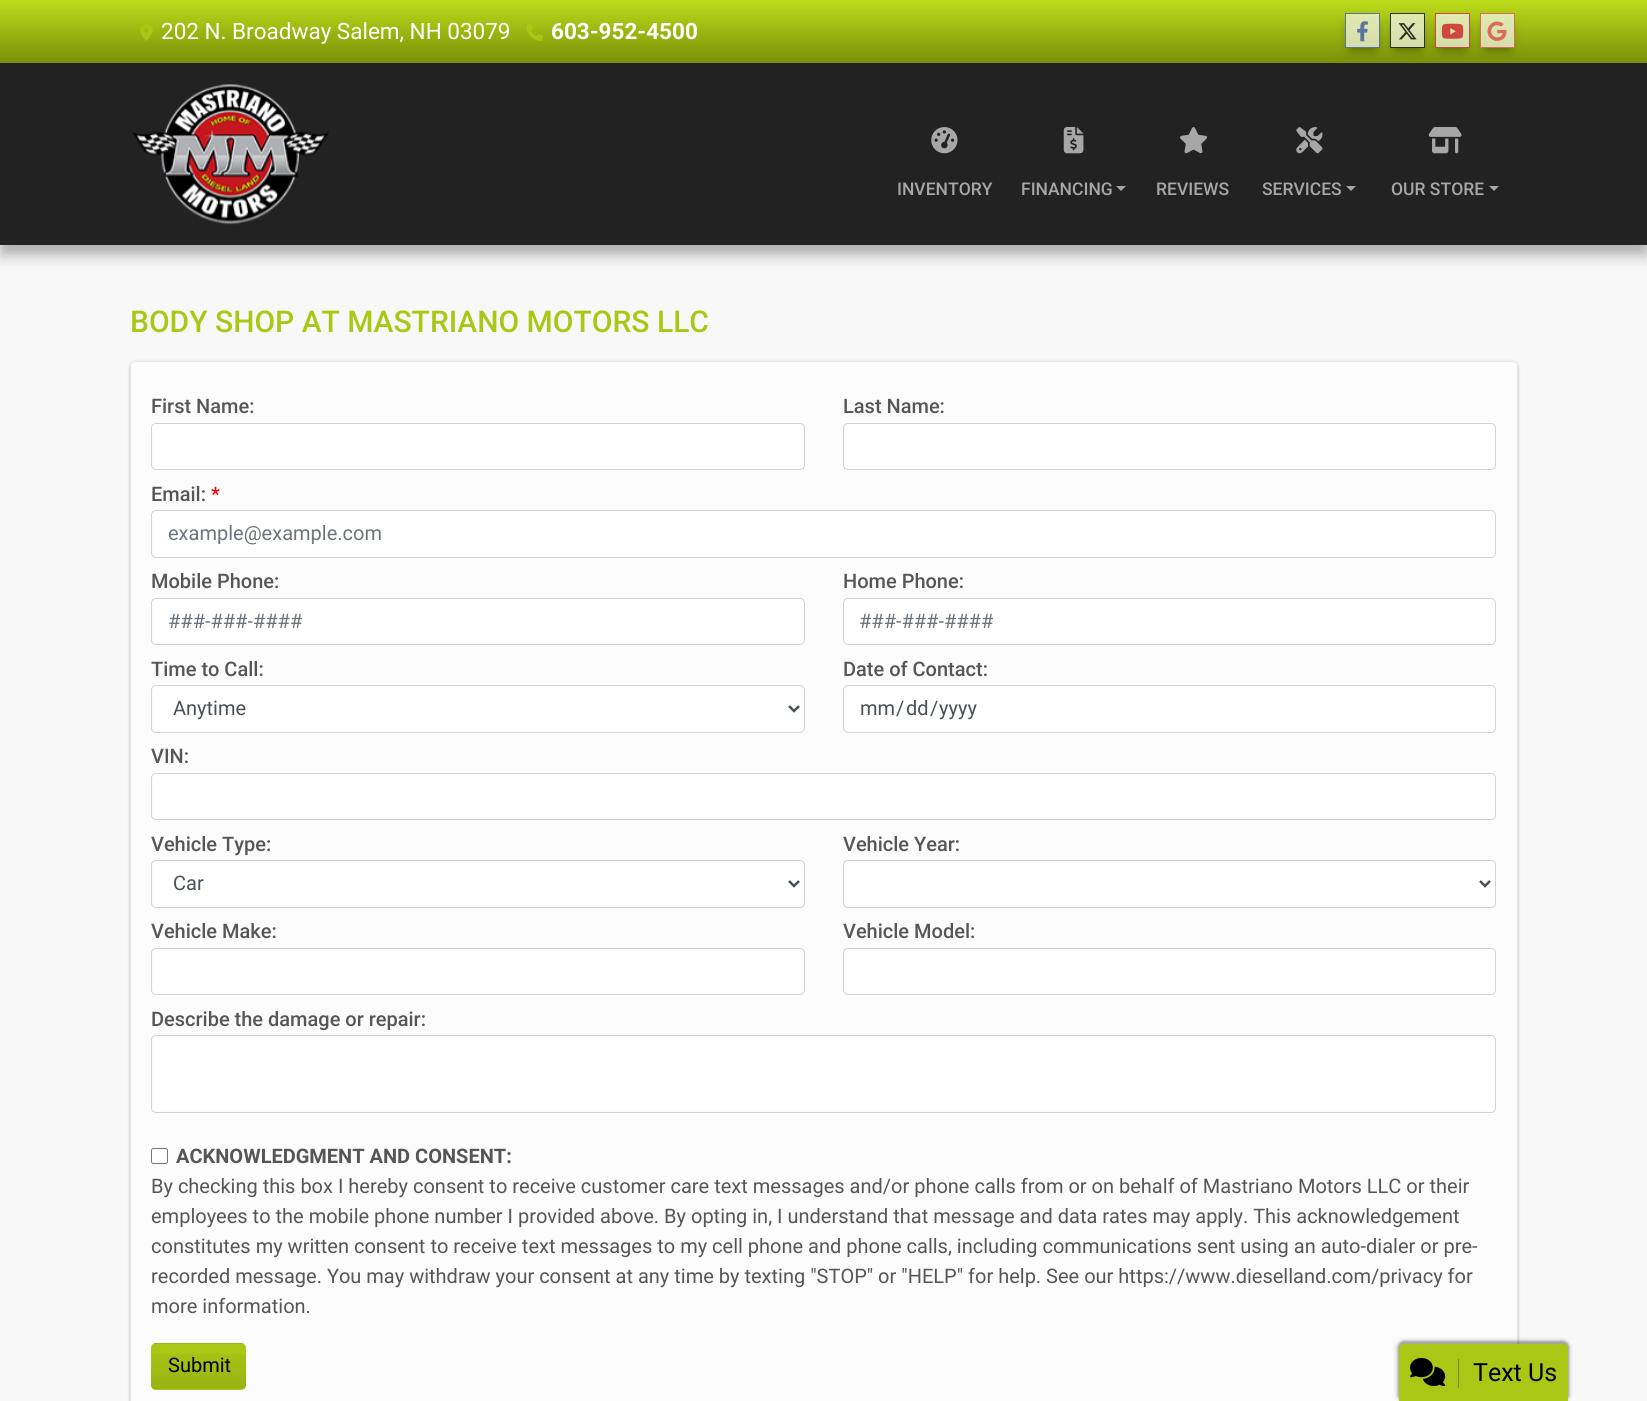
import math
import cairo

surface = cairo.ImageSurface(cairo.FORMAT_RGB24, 1647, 1401)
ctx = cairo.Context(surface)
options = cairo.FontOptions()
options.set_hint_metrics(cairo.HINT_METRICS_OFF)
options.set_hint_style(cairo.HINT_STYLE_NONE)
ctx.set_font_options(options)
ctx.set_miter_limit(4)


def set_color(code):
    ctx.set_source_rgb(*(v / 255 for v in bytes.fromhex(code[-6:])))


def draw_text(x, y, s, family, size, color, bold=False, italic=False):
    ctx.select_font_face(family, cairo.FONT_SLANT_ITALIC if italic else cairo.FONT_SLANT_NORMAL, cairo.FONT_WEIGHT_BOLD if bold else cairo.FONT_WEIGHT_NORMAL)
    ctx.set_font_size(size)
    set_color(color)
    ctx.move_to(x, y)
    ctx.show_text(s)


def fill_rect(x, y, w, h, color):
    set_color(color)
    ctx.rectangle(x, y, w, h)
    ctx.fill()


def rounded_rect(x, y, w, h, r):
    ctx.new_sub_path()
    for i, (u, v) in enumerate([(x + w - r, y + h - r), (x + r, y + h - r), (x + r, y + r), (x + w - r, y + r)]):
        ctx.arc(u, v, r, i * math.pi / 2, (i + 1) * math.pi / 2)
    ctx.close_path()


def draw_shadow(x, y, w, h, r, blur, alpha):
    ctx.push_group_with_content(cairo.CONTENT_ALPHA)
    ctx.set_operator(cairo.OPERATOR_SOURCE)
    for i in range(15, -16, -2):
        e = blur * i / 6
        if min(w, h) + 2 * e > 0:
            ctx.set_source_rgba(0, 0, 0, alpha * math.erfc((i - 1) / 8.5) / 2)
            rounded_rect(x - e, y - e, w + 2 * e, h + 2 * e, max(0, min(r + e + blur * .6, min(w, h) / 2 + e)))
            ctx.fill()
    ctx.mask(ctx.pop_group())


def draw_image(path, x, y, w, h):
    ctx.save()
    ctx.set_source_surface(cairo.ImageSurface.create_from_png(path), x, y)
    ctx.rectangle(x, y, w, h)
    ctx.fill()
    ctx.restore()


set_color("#f8f8f8")
ctx.paint()
set_color("#000000")
draw_shadow(0, 6, 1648, 245, 0, 3, 0.1)
draw_shadow(0, 13, 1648, 245, 0, 6, 0.2)
fill_rect(0, 63, 1647, 182, "#222222")
gradient = cairo.LinearGradient(824, 0, 824, 63)
gradient.add_color_stop_rgba(0, 0.741, 0.863, 0.102, 1)
gradient.add_color_stop_rgba(1, 0.478, 0.565, 0.031, 1)
ctx.set_source(gradient)
ctx.rectangle(0, 0, 1647, 63)
ctx.fill()
draw_image("assets/img1.png", 140, 24, 13, 17)
draw_text(161, 39, "202 N. Broadway Salem, NH 03079", "Roboto", 22.5, "#ffffff")
draw_image("assets/img2.png", 526, 24, 17, 17)
draw_text(551, 39, "603-952-4500", "Roboto", 22.5, "#ffffff", bold=True)
ctx.save()
ctx.set_fill_rule(cairo.FILL_RULE_EVEN_ODD)
ctx.new_path()
ctx.move_to(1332, 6)
ctx.line_to(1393, 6)
ctx.line_to(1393, 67)
ctx.line_to(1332, 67)
ctx.close_path()
ctx.move_to(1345, 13)
ctx.line_to(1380, 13)
ctx.line_to(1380, 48)
ctx.line_to(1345, 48)
ctx.close_path()
ctx.clip()
set_color("#000000")
draw_shadow(1351, 25, 23, 23, 0, 6, 0.48)
ctx.restore()
ctx.set_source_rgba(0.973, 0.973, 0.973, 0.68)
ctx.rectangle(1345, 13, 35, 35)
ctx.fill()
ctx.rectangle(1345.5, 13.5, 34, 34)
ctx.set_source_rgba(0.231, 0.349, 0.596, 0.8)
ctx.set_line_width(1)
ctx.stroke()
draw_image("assets/img3.png", 1357, 21, 11, 21)
ctx.save()
ctx.set_fill_rule(cairo.FILL_RULE_EVEN_ODD)
ctx.new_path()
ctx.move_to(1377, 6)
ctx.line_to(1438, 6)
ctx.line_to(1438, 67)
ctx.line_to(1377, 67)
ctx.close_path()
ctx.move_to(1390, 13)
ctx.line_to(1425, 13)
ctx.line_to(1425, 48)
ctx.line_to(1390, 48)
ctx.close_path()
ctx.clip()
set_color("#000000")
draw_shadow(1396, 25, 23, 23, 0, 6, 0.48)
ctx.restore()
ctx.set_source_rgba(0.973, 0.973, 0.973, 0.68)
ctx.rectangle(1390, 13, 35, 35)
ctx.fill()
ctx.rectangle(1390.5, 13.5, 34, 34)
ctx.set_source_rgba(0, 0, 0, 0.8)
ctx.stroke()
draw_image("assets/img4.png", 1398, 23, 19, 17)
ctx.save()
ctx.set_fill_rule(cairo.FILL_RULE_EVEN_ODD)
ctx.new_path()
ctx.move_to(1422, 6)
ctx.line_to(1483, 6)
ctx.line_to(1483, 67)
ctx.line_to(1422, 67)
ctx.close_path()
ctx.move_to(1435, 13)
ctx.line_to(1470, 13)
ctx.line_to(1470, 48)
ctx.line_to(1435, 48)
ctx.close_path()
ctx.clip()
set_color("#000000")
draw_shadow(1441, 25, 23, 23, 0, 6, 0.48)
ctx.restore()
ctx.set_source_rgba(0.973, 0.973, 0.973, 0.68)
ctx.rectangle(1435, 13, 35, 35)
ctx.fill()
ctx.rectangle(1435.5, 13.5, 34, 34)
ctx.set_source_rgba(0.804, 0.125, 0.122, 0.8)
ctx.stroke()
draw_image("assets/img5.png", 1441, 23, 23, 16)
ctx.save()
ctx.set_fill_rule(cairo.FILL_RULE_EVEN_ODD)
ctx.new_path()
ctx.move_to(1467, 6)
ctx.line_to(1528, 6)
ctx.line_to(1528, 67)
ctx.line_to(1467, 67)
ctx.close_path()
ctx.move_to(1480, 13)
ctx.line_to(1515, 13)
ctx.line_to(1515, 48)
ctx.line_to(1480, 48)
ctx.close_path()
ctx.clip()
set_color("#000000")
draw_shadow(1486, 25, 23, 23, 0, 6, 0.48)
ctx.restore()
ctx.set_source_rgba(0.973, 0.973, 0.973, 0.68)
ctx.rectangle(1480, 13, 35, 35)
ctx.fill()
ctx.rectangle(1480.5, 13.5, 34, 34)
ctx.set_source_rgba(0.863, 0.306, 0.255, 0.8)
ctx.stroke()
draw_image("assets/img6.png", 1487, 21, 20, 20)
draw_image("assets/img7.png", 132, 84, 197, 141)
draw_image("assets/img8.png", 931, 127, 27, 27)
draw_text(897, 195, "INVENTORY", "Roboto Medium", 17.5, "#a7a7a7")
draw_image("assets/img9.png", 1063, 127, 21, 27)
draw_text(1021, 195, "FINANCING", "Roboto Medium", 17.5, "#a7a7a7")
ctx.new_path()
ctx.move_to(1116, 186)
ctx.line_to(1126, 186)
ctx.line_to(1121, 191)
ctx.close_path()
ctx.fill()
draw_image("assets/img10.png", 1180, 127, 27, 27)
draw_text(1156, 195, "REVIEWS", "Roboto Medium", 17.5, "#a7a7a7")
draw_image("assets/img11.png", 1296, 127, 27, 27)
draw_text(1262, 195, "SERVICES", "Roboto Medium", 17.5, "#a7a7a7")
ctx.new_path()
ctx.move_to(1346, 186)
ctx.line_to(1356, 186)
ctx.line_to(1351, 191)
ctx.close_path()
ctx.fill()
draw_image("assets/img12.png", 1428, 127, 34, 27)
draw_text(1391, 195, "OUR STORE", "Roboto Medium", 17.5, "#a7a7a7")
ctx.new_path()
ctx.move_to(1489, 186)
ctx.line_to(1499, 186)
ctx.line_to(1494, 191)
ctx.close_path()
ctx.fill()
draw_text(130, 332, "BODY SHOP AT MASTRIANO MOTORS LLC", "Roboto Medium", 30, "#aac715")
ctx.save()
ctx.set_fill_rule(cairo.FILL_RULE_EVEN_ODD)
ctx.new_path()
ctx.move_to(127, 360)
ctx.line_to(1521, 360)
ctx.line_to(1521, 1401)
ctx.line_to(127, 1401)
ctx.close_path()
ctx.move_to(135, 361)
ctx.line_to(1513, 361)
ctx.curve_to(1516, 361, 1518, 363, 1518, 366)
ctx.line_to(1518, 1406)
ctx.curve_to(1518, 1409, 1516, 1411, 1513, 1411)
ctx.line_to(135, 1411)
ctx.curve_to(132, 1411, 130, 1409, 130, 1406)
ctx.line_to(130, 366)
ctx.curve_to(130, 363, 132, 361, 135, 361)
ctx.close_path()
ctx.clip()
set_color("#000000")
draw_shadow(130, 363, 1388, 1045, 5, 0.5, 0.2)
ctx.restore()
ctx.save()
ctx.set_fill_rule(cairo.FILL_RULE_EVEN_ODD)
ctx.new_path()
ctx.move_to(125, 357)
ctx.line_to(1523, 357)
ctx.line_to(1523, 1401)
ctx.line_to(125, 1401)
ctx.close_path()
ctx.move_to(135, 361)
ctx.line_to(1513, 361)
ctx.curve_to(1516, 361, 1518, 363, 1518, 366)
ctx.line_to(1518, 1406)
ctx.curve_to(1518, 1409, 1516, 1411, 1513, 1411)
ctx.line_to(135, 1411)
ctx.curve_to(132, 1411, 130, 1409, 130, 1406)
ctx.line_to(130, 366)
ctx.curve_to(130, 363, 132, 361, 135, 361)
ctx.close_path()
ctx.clip()
set_color("#000000")
draw_shadow(129, 361, 1390, 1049, 6, 1, 0.1)
ctx.restore()
ctx.set_source_rgba(1, 1, 1, 0.6)
rounded_rect(130, 361, 1388, 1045, 5)
ctx.fill()
rounded_rect(130.5, 361.5, 1387, 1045, 4.5)
ctx.set_source_rgba(0.898, 0.898, 0.898, 0.8)
ctx.stroke()
draw_text(151, 413, "First Name:", "Roboto Medium", 20, "#565656")
set_color("#ffffff")
rounded_rect(153, 424, 651, 45, 4)
ctx.fill()
rounded_rect(151.5, 423.5, 653, 46, 4.5)
set_color("#ced4da")
ctx.stroke()
draw_text(843, 413, "Last Name:", "Roboto Medium", 20, "#565656")
set_color("#ffffff")
rounded_rect(843.5, 423.5, 652, 46, 4.5)
ctx.fill_preserve()
set_color("#ced4da")
ctx.stroke()
draw_text(151, 501, "Email:", "Roboto Medium", 20, "#565656")
draw_text(211, 501, "*", "Roboto Medium", 20, "#ff0000")
set_color("#ffffff")
rounded_rect(153, 511, 1342, 45, 4)
ctx.fill()
rounded_rect(151.5, 510.5, 1344, 47, 4.5)
set_color("#ced4da")
ctx.stroke()
draw_text(168, 540, "example@example.com", "Roboto", 20, "#6c757d")
draw_text(151, 588, "Mobile Phone:", "Roboto Medium", 20, "#565656")
set_color("#ffffff")
rounded_rect(153, 599, 651, 45, 4)
ctx.fill()
rounded_rect(151.5, 598.5, 653, 46, 4.5)
set_color("#ced4da")
ctx.stroke()
draw_text(168, 628, "###-###-####", "Roboto", 20, "#6c757d")
draw_text(843, 588, "Home Phone:", "Roboto Medium", 20, "#565656")
set_color("#ffffff")
rounded_rect(843.5, 598.5, 652, 46, 4.5)
ctx.fill_preserve()
set_color("#ced4da")
ctx.stroke()
draw_text(859, 628, "###-###-####", "Roboto", 20, "#6c757d")
draw_text(151, 676, "Time to Call:", "Roboto Medium", 20, "#565656")
set_color("#ffffff")
rounded_rect(153, 686, 651, 45, 4)
ctx.fill()
rounded_rect(151.5, 685.5, 653, 47, 4.5)
set_color("#ced4da")
ctx.stroke()
ctx.new_path()
ctx.move_to(789, 706)
ctx.line_to(794, 711)
ctx.line_to(799, 706)
set_color("#495057")
ctx.set_line_width(2.5)
ctx.stroke()
draw_text(173, 715, "Anytime", "Roboto", 20, "#495057")
draw_text(843, 676, "Date of Contact:", "Roboto Medium", 20, "#565656")
set_color("#ffffff")
rounded_rect(844, 686, 651, 45, 4)
ctx.fill()
rounded_rect(843.5, 685.5, 652, 47, 4.5)
set_color("#ced4da")
ctx.set_line_width(1)
ctx.stroke()
draw_text(860, 715, "mm", "Roboto", 20, "#495057")
draw_text(896, 715, "/", "Roboto", 20, "#495057")
draw_text(906, 715, "dd", "Roboto", 20, "#495057")
draw_text(930, 715, "/", "Roboto", 20, "#495057")
draw_text(939, 715, "yyyy", "Roboto", 20, "#495057")
draw_text(151, 763, "VIN:", "Roboto Medium", 20, "#565656")
set_color("#ffffff")
rounded_rect(153, 774, 1342, 45, 4)
ctx.fill()
rounded_rect(151.5, 773.5, 1344, 46, 4.5)
set_color("#ced4da")
ctx.stroke()
draw_text(151, 851, "Vehicle Type:", "Roboto Medium", 20, "#565656")
set_color("#ffffff")
rounded_rect(153, 861, 651, 45, 4)
ctx.fill()
rounded_rect(151.5, 860.5, 653, 47, 4.5)
set_color("#ced4da")
ctx.stroke()
ctx.new_path()
ctx.move_to(789, 881)
ctx.line_to(794, 886)
ctx.line_to(799, 881)
set_color("#495057")
ctx.set_line_width(2.5)
ctx.stroke()
draw_text(173, 890, "Car", "Roboto", 20, "#495057")
draw_text(843, 851, "Vehicle Year:", "Roboto Medium", 20, "#565656")
set_color("#ffffff")
rounded_rect(844, 861, 651, 45, 4)
ctx.fill()
rounded_rect(843.5, 860.5, 652, 47, 4.5)
set_color("#ced4da")
ctx.set_line_width(1)
ctx.stroke()
ctx.new_path()
ctx.move_to(1480, 881)
ctx.line_to(1485, 886)
ctx.line_to(1490, 881)
set_color("#495057")
ctx.set_line_width(2.5)
ctx.stroke()
draw_text(151, 938, "Vehicle Make:", "Roboto Medium", 20, "#565656")
set_color("#ffffff")
rounded_rect(153, 949, 651, 45, 4)
ctx.fill()
rounded_rect(151.5, 948.5, 653, 46, 4.5)
set_color("#ced4da")
ctx.set_line_width(1)
ctx.stroke()
draw_text(843, 938, "Vehicle Model:", "Roboto Medium", 20, "#565656")
set_color("#ffffff")
rounded_rect(843.5, 948.5, 652, 46, 4.5)
ctx.fill_preserve()
set_color("#ced4da")
ctx.stroke()
draw_text(151, 1026, "Describe the damage or repair:", "Roboto Medium", 20, "#565656")
set_color("#ffffff")
rounded_rect(153, 1036, 1342, 75, 4)
ctx.fill()
rounded_rect(151.5, 1035.5, 1344, 77, 4.5)
set_color("#ced4da")
ctx.stroke()
set_color("#ffffff")
rounded_rect(151.5, 1148.5, 16, 15, 2)
ctx.fill_preserve()
set_color("#767676")
ctx.stroke()
draw_text(176, 1163, "ACKNOWLEDGMENT AND CONSENT:", "Roboto", 20, "#565656", bold=True)
draw_text(151, 1193, "By checking this box I hereby consent to receive customer care text messages and/or phone calls from or on behalf of Mastriano Motors LLC or their", "Roboto", 20, "#565656")
draw_text(151, 1223, "employees to the mobile phone number I provided above. By opting in, I understand that message and data rates may apply. This acknowledgement", "Roboto", 20, "#565656")
draw_text(151, 1253, "constitutes my written consent to receive text messages to my cell phone and phone calls, including communications sent using an auto-dialer or pre-", "Roboto", 20, "#565656")
draw_text(151, 1283, "recorded message. You may withdraw your consent at any time by texting \"STOP\" or \"HELP\" for help. See our https://www.dieselland.com/privacy for", "Roboto", 20, "#565656")
draw_text(151, 1313, "more information.", "Roboto", 20, "#565656")
set_color("#aac715")
rounded_rect(151, 1343, 95, 47, 5)
ctx.fill()
ctx.save()
rounded_rect(151, 1343, 95, 47, 5)
ctx.clip()
gradient = cairo.LinearGradient(199, 1299, 199, 1344)
gradient.add_color_stop_rgba(0, 0, 0, 0, 0)
gradient.add_color_stop_rgba(1, 0, 0, 0, 0.1)
ctx.set_source(gradient)
ctx.rectangle(151, 1343, 95, 1)
ctx.fill()
gradient = cairo.LinearGradient(199, 1344, 199, 1389)
gradient.add_color_stop_rgba(0, 0, 0, 0, 0)
gradient.add_color_stop_rgba(1, 0, 0, 0, 0.1)
ctx.set_source(gradient)
ctx.rectangle(151, 1354, 95, 35)
ctx.fill()
ctx.restore()
draw_text(168, 1372, "Submit", "Roboto", 20, "#000000")
set_color("#000000")
draw_shadow(1398, 1341, 171, 60, 6, 1, 0.25)
draw_shadow(1396, 1340, 174, 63, 8, 2, 0.15)
set_color("#aac715")
ctx.new_path()
ctx.move_to(1404, 1344)
ctx.line_to(1563, 1344)
ctx.curve_to(1566, 1344, 1568, 1346, 1568, 1349)
ctx.line_to(1568, 1401)
ctx.line_to(1399, 1401)
ctx.line_to(1399, 1349)
ctx.curve_to(1399, 1346, 1401, 1344, 1404, 1344)
ctx.close_path()
ctx.fill()
fill_rect(1458, 1359, 1, 29, "#778b0f")
draw_image("assets/img13.png", 1410, 1357, 36, 29)
draw_text(1473, 1381, "Text Us", "Roboto", 25, "#000000")
surface.write_to_png("output.png")
